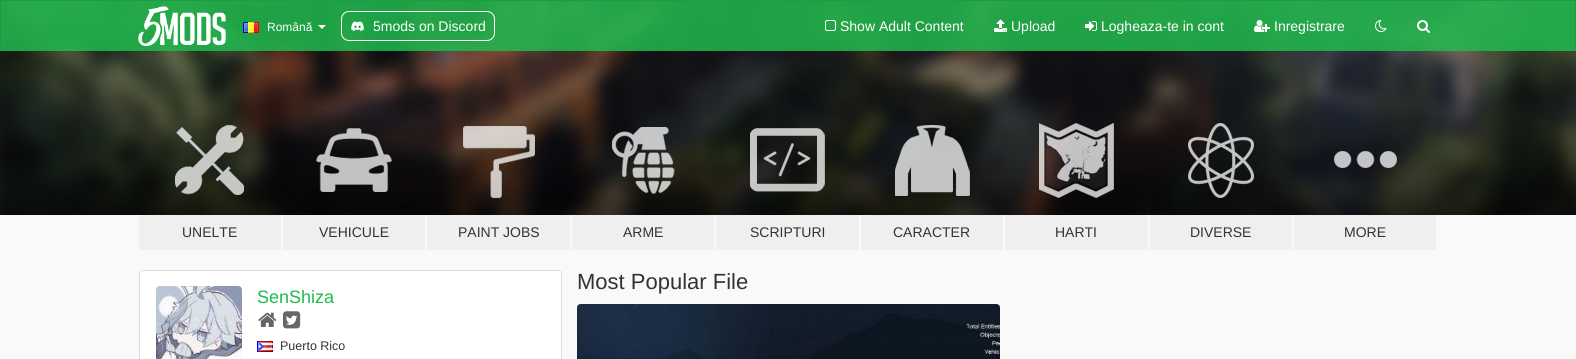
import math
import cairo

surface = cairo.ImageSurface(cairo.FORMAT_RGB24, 1576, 359)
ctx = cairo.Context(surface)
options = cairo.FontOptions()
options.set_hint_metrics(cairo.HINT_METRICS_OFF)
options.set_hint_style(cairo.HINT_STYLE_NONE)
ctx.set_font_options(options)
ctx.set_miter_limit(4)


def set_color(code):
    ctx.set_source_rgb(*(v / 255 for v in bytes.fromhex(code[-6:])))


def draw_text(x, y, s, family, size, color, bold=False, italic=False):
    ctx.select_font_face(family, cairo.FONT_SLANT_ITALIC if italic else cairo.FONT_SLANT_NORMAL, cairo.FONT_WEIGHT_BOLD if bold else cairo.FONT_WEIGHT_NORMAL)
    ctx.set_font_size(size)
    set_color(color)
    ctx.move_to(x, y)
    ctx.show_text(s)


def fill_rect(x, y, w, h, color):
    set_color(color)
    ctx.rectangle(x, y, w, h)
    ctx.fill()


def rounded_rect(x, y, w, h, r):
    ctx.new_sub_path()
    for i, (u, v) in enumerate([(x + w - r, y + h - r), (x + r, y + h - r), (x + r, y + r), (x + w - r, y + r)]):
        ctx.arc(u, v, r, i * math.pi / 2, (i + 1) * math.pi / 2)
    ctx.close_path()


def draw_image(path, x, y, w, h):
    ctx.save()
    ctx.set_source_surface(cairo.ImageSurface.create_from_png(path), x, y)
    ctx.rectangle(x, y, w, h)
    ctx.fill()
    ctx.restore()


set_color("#f9f9f9")
ctx.paint()
draw_image("assets/img10.png", 0, 1, 1576, 214)
ctx.set_source_rgba(0.125, 0.729, 0.306, 0.85)
ctx.rectangle(1, 1, 1574, 50)
ctx.fill()
fill_rect(0, 0, 1576, 1, "#1b9e42")
fill_rect(1575, 0, 1, 51, "#1b9e42")
fill_rect(0, 0, 1, 51, "#1b9e42")
draw_image("assets/img1.png", 138, 6, 88, 40)
draw_image("assets/img2.png", 243, 22, 16, 11)
draw_text(267, 31, "Română", "Liberation Sans", 12, "#ffffff")
ctx.new_path()
ctx.move_to(318, 25)
ctx.line_to(326, 25)
ctx.line_to(322, 29)
ctx.close_path()
ctx.fill()
rounded_rect(341.5, 11.5, 153, 29, 7.5)
ctx.set_line_width(1)
ctx.stroke()
draw_image("assets/img3.png", 351, 21, 13, 10)
draw_text(373, 31, "5mods on Discord", "Liberation Sans", 14, "#ffffff")
draw_image("assets/img4.png", 825, 20, 11, 11)
draw_text(840, 31, "Show Adult Content", "Liberation Sans", 14, "#ffffff")
draw_image("assets/img5.png", 994, 19, 13, 13)
draw_text(1011, 31, "Upload", "Liberation Sans", 14, "#ffffff")
draw_image("assets/img6.png", 1085, 21, 12, 10)
draw_text(1101, 31, "Logheaza-te in cont", "Liberation Sans", 14, "#ffffff")
draw_image("assets/img7.png", 1254, 20, 16, 12)
draw_text(1274, 31, "Inregistrare", "Liberation Sans", 14, "#ffffff")
draw_image("assets/img8.png", 1375, 20, 12, 12)
draw_image("assets/img9.png", 1417, 20, 13, 13)
draw_image("assets/img11.png", 175, 125, 69, 70)
fill_rect(139, 215, 142, 35, "#efefef")
draw_text(182, 237, "UNELTE", "Liberation Sans", 14, "#333333")
draw_image("assets/img12.png", 316, 128, 76, 64)
fill_rect(283, 215, 142, 35, "#efefef")
draw_text(319, 237, "VEHICULE", "Liberation Sans", 14, "#333333")
draw_image("assets/img13.png", 463, 126, 72, 72)
fill_rect(427, 215, 143, 35, "#efefef")
draw_text(458, 237, "PAINT JOBS", "Liberation Sans", 14, "#333333")
draw_image("assets/img14.png", 612, 127, 63, 67)
fill_rect(572, 215, 142, 35, "#efefef")
draw_text(623, 237, "ARME", "Liberation Sans", 14, "#333333")
draw_image("assets/img15.png", 750, 128, 75, 64)
fill_rect(716, 215, 143, 35, "#efefef")
draw_text(750, 237, "SCRIPTURI", "Liberation Sans", 14, "#333333")
draw_image("assets/img16.png", 895, 125, 75, 71)
fill_rect(861, 215, 142, 35, "#efefef")
draw_text(893, 237, "CARACTER", "Liberation Sans", 14, "#333333")
draw_image("assets/img17.png", 1039, 123, 75, 75)
fill_rect(1005, 215, 143, 35, "#efefef")
draw_text(1055, 237, "HARTI", "Liberation Sans", 14, "#333333")
draw_image("assets/img18.png", 1188, 123, 66, 75)
fill_rect(1150, 215, 142, 35, "#efefef")
draw_text(1190, 237, "DIVERSE", "Liberation Sans", 14, "#333333")
draw_image("assets/img19.png", 1334, 151, 63, 17)
fill_rect(1294, 215, 142, 35, "#efefef")
draw_text(1344, 237, "MORE", "Liberation Sans", 14, "#333333")
draw_text(577, 289, "Most Popular File", "Liberation Sans", 22, "#333333")
draw_image("assets/img20.png", 577, 304, 423, 55)
set_color("#ffffff")
rounded_rect(139.5, 270.5, 422, 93, 3.5)
ctx.fill_preserve()
set_color("#dddddd")
ctx.stroke()
draw_image("assets/img21.png", 156, 286, 86, 73)
draw_text(257, 303, "SenShiza", "Liberation Sans", 18, "#20ba4e")
draw_image("assets/img22.png", 258, 312, 19, 15)
draw_image("assets/img23.png", 283, 311, 18, 18)
draw_image("assets/img24.png", 257, 341, 16, 11)
draw_text(280, 350, "Puerto Rico", "Liberation Sans", 12.5, "#333333")
surface.write_to_png("output.png")
